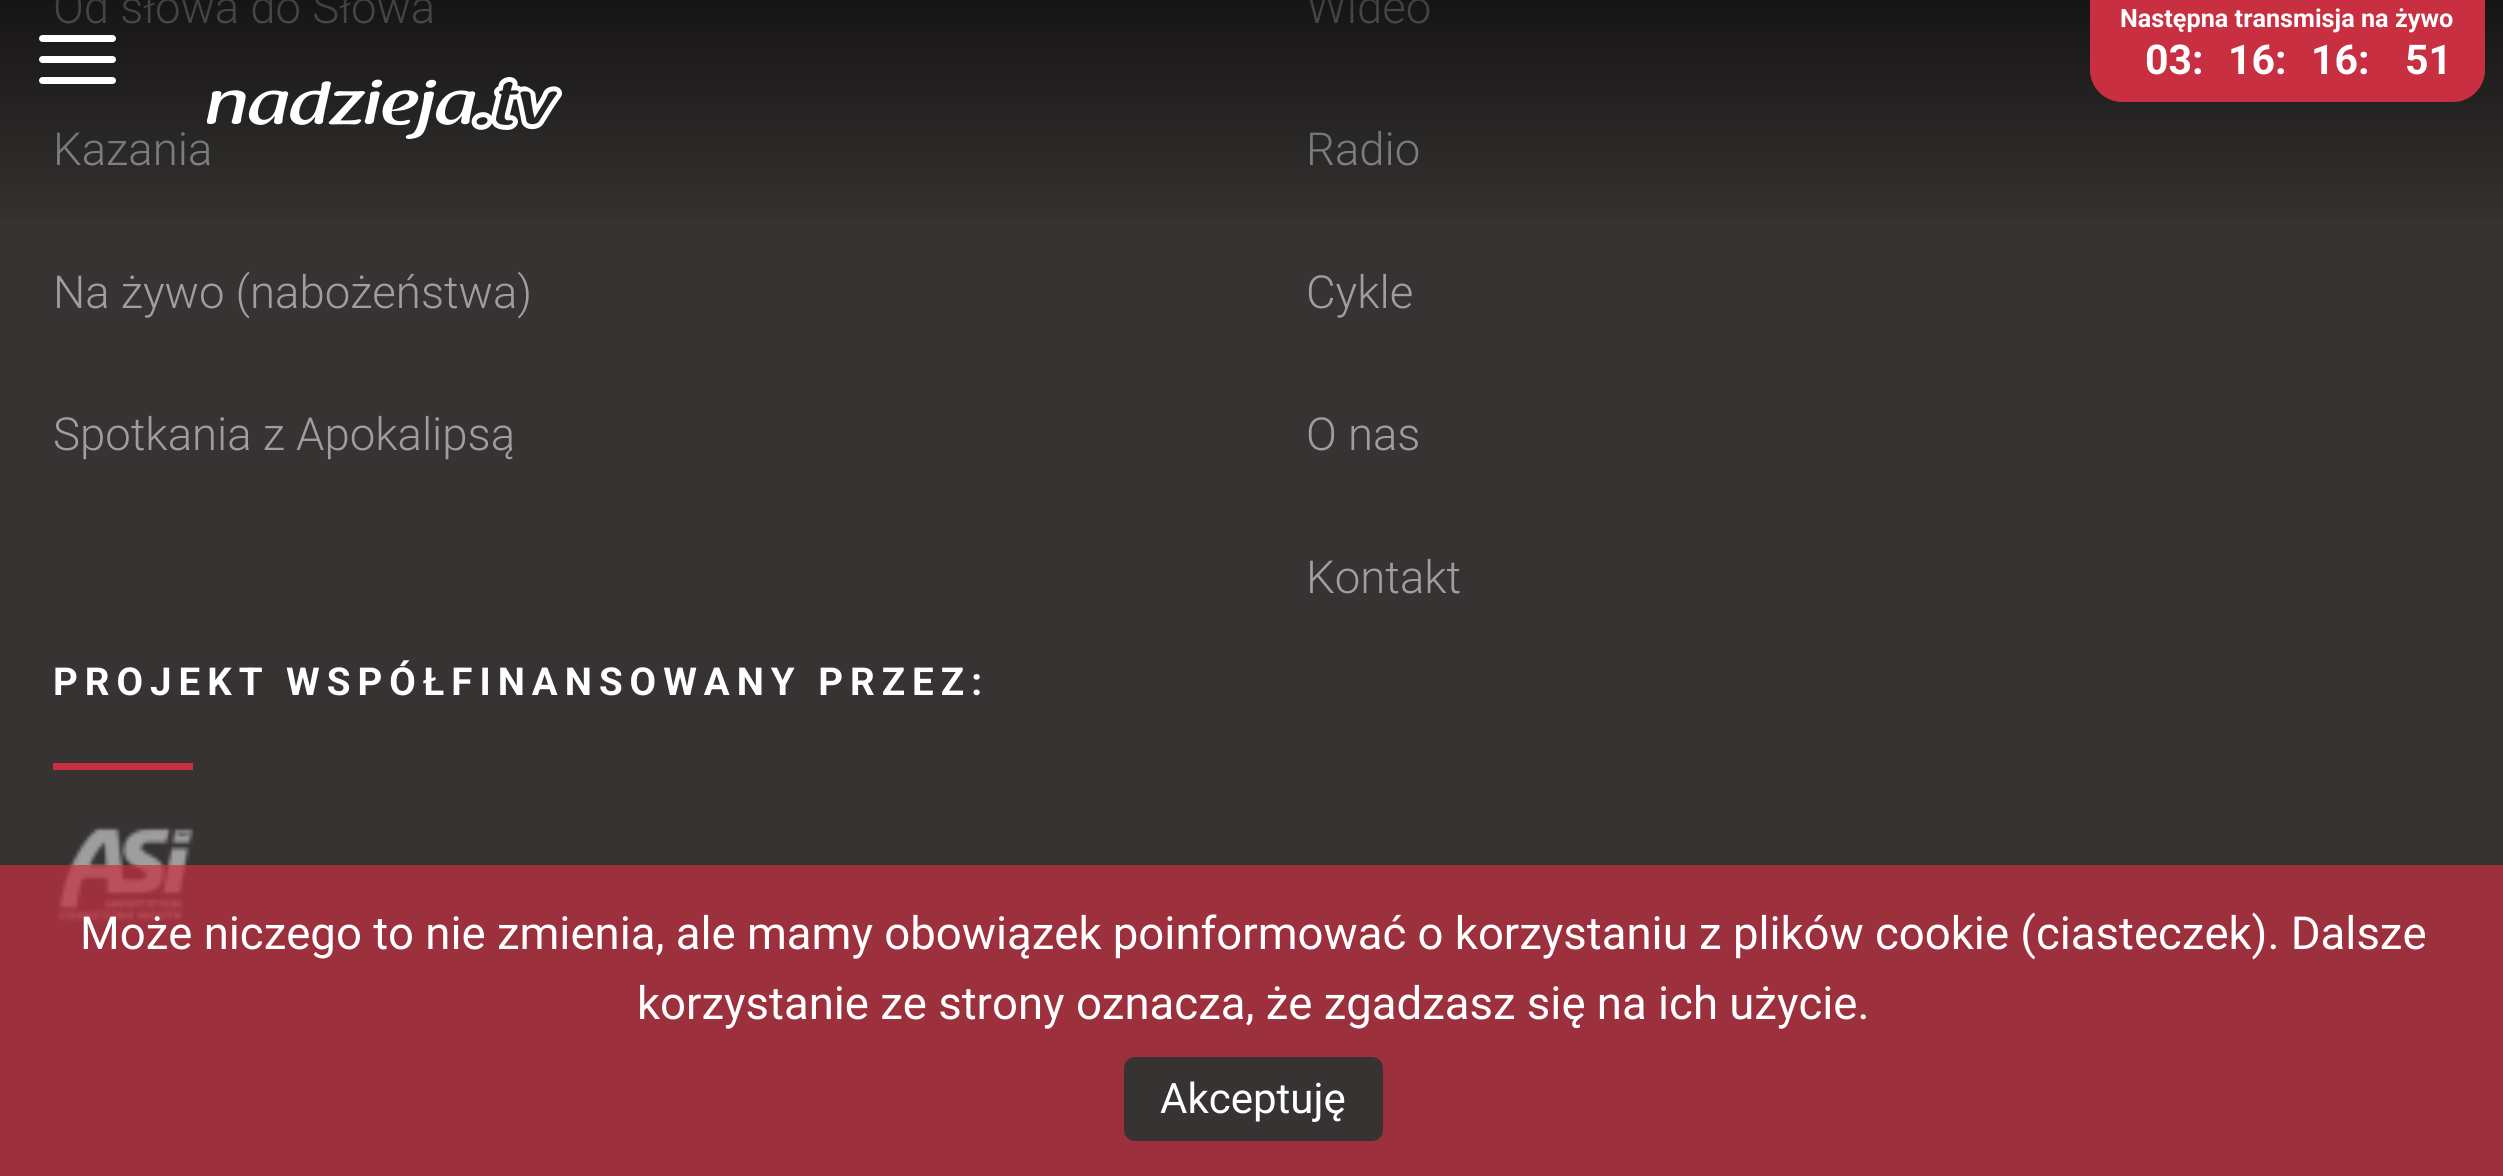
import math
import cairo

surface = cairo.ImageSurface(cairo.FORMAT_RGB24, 2503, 1176)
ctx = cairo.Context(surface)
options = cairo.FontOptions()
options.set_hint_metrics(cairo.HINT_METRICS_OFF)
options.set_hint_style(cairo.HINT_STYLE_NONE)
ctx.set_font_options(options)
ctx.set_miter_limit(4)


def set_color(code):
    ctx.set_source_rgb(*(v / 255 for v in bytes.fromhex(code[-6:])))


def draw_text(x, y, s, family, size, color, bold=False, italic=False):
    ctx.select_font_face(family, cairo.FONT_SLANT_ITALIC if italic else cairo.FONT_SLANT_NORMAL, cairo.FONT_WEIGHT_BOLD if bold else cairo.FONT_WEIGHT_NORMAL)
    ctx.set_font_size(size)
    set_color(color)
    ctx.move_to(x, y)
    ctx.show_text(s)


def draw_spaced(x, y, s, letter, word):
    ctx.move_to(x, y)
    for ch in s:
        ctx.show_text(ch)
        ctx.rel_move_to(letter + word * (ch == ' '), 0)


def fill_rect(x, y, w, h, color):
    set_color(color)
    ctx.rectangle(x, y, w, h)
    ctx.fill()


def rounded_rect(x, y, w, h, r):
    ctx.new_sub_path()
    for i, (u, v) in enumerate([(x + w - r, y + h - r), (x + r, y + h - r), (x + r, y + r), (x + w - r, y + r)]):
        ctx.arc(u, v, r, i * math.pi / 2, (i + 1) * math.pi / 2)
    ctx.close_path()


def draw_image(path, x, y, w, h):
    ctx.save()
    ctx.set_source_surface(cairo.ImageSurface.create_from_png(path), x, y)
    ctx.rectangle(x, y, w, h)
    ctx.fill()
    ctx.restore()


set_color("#373333")
ctx.paint()
draw_text(53, 23, "Od słowa do Słowa", "Roboto Light", 45.5, "#9e9e9e")
draw_text(53, 165, "Kazania", "Roboto Light", 45.5, "#9e9e9e")
draw_text(53, 308, "Na żywo (nabożeństwa)", "Roboto Light", 45.5, "#9e9e9e")
draw_text(53, 450, "Spotkania z Apokalipsą", "Roboto Light", 45.5, "#9e9e9e")
draw_text(1306, 23, "Wideo", "Roboto Light", 45.5, "#9e9e9e")
draw_text(1306, 165, "Radio", "Roboto Light", 45.5, "#9e9e9e")
draw_text(1306, 308, "Cykle", "Roboto Light", 45.5, "#9e9e9e")
draw_text(1306, 450, "O nas", "Roboto Light", 45.5, "#9e9e9e")
draw_text(1306, 593, "Kontakt", "Roboto Light", 45.5, "#9e9e9e")
ctx.select_font_face("Roboto", cairo.FONT_SLANT_NORMAL, cairo.FONT_WEIGHT_BOLD)
ctx.set_font_size(38.5)
set_color("#ffffff")
draw_spaced(53, 695, "PROJEKT WSPÓŁFINANSOWANY PRZEZ:", 7, 0)
fill_rect(53, 763, 140, 7, "#c83042")
draw_image("assets/img1.png", 58, 826, 136, 96)
gradient = cairo.LinearGradient(1253, 0, 1253, 238)
gradient.add_color_stop_rgba(0, 0, 0, 0, 0.6)
gradient.add_color_stop_rgba(1, 0, 0, 0, 0)
ctx.set_source(gradient)
ctx.rectangle(0, 0, 2503, 219)
ctx.fill()
set_color("#ffffff")
rounded_rect(39, 35, 77, 7, 3.5)
ctx.fill()
rounded_rect(39, 56, 77, 7, 3.5)
ctx.fill()
rounded_rect(39, 77, 77, 7, 3.5)
ctx.fill()
draw_image("assets/img2.png", 207, 77, 355, 62)
set_color("#c83042")
ctx.new_path()
ctx.move_to(2090, -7)
ctx.line_to(2485, -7)
ctx.line_to(2485, 70)
ctx.curve_to(2485, 87.5, 2470.5, 102, 2453, 102)
ctx.line_to(2122, 102)
ctx.curve_to(2104.5, 102, 2090, 87.5, 2090, 70)
ctx.close_path()
ctx.fill()
draw_text(2120, 27, "Następna transmisja na żywo", "Roboto", 25.25, "#ffffff", bold=True)
draw_text(2145, 74, "03:", "Roboto", 41, "#ffffff", bold=True)
draw_text(2228, 74, "16:", "Roboto", 41, "#ffffff", bold=True)
draw_text(2311, 74, "16:", "Roboto", 41, "#ffffff", bold=True)
draw_text(2405, 74, "51", "Roboto", 41, "#ffffff", bold=True)
ctx.set_source_rgba(0.784, 0.188, 0.259, 0.7)
ctx.rectangle(0, 865, 2503, 311)
ctx.fill()
draw_text(80, 949, "Może niczego to nie zmienia, ale mamy obowiązek poinformować o korzystaniu z plików cookie (ciasteczek). Dalsze", "Roboto", 45.5, "#ffffff")
draw_text(637, 1019, "korzystanie ze strony oznacza, że zgadzasz się na ich użycie.", "Roboto", 45.5, "#ffffff")
set_color("#373333")
rounded_rect(1124, 1057, 259, 84, 11)
ctx.fill()
draw_text(1160, 1113, "Akceptuję", "Roboto", 42, "#ffffff")
surface.write_to_png("output.png")
